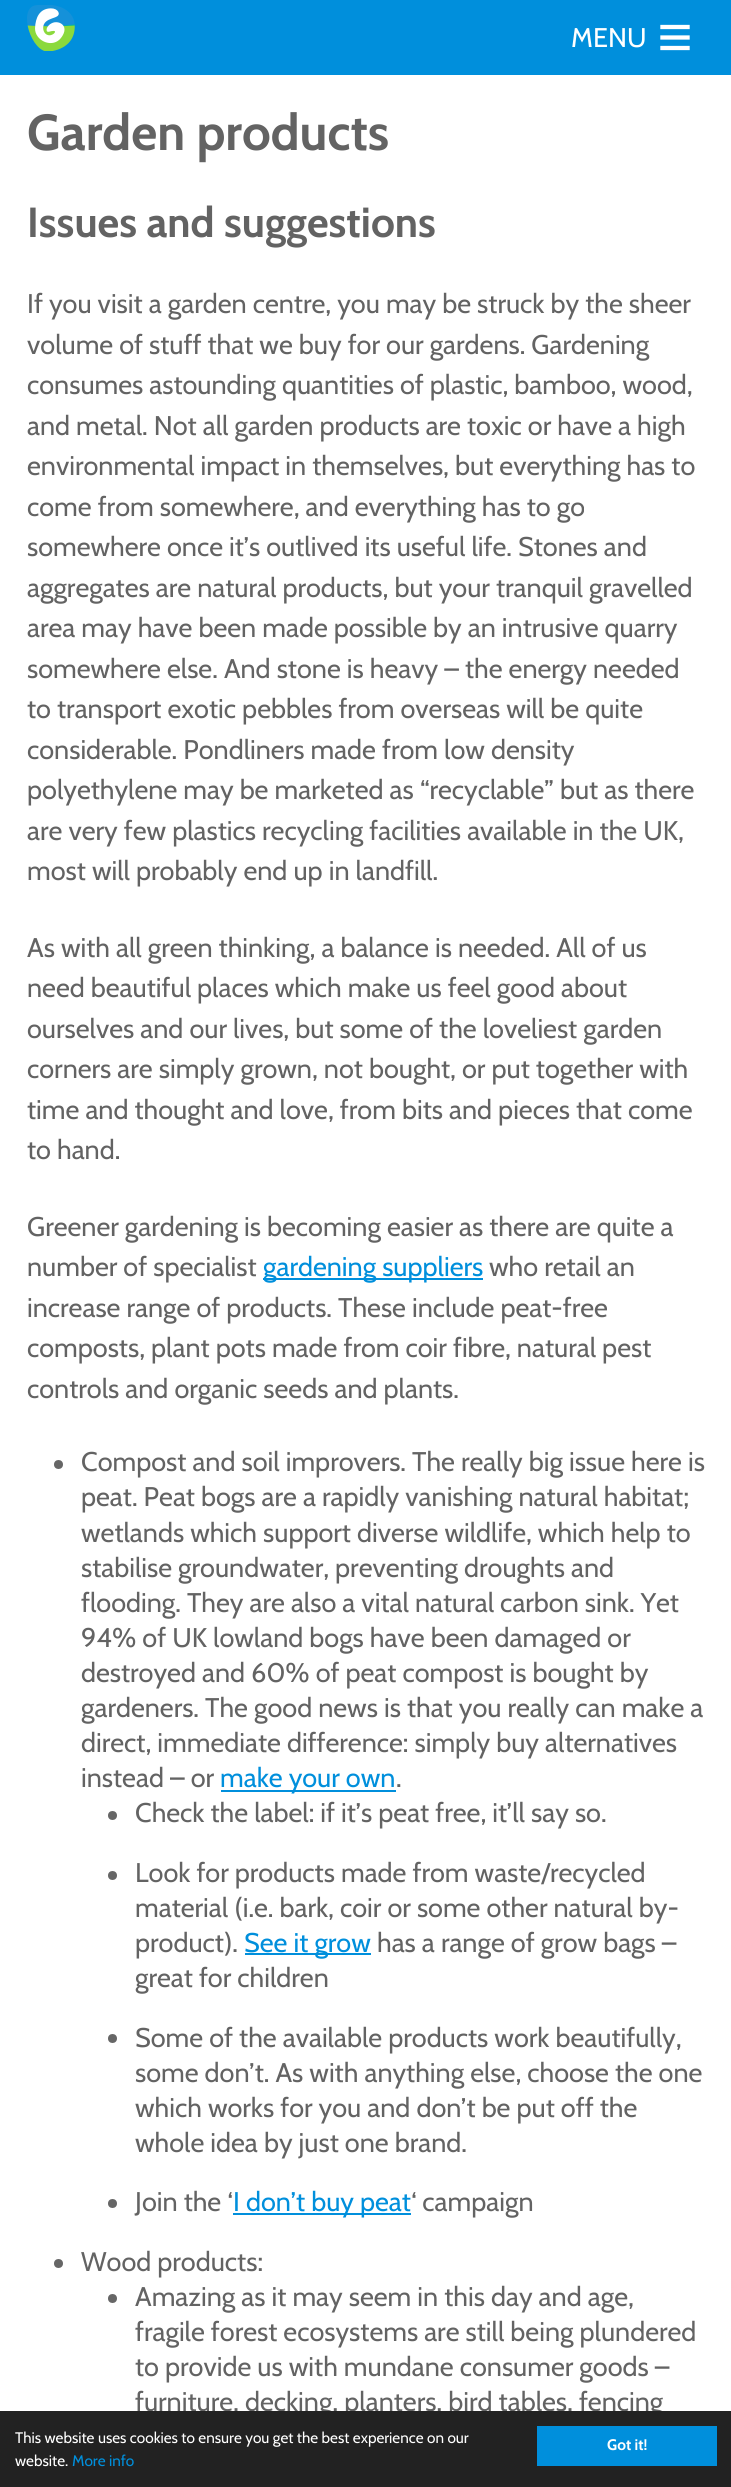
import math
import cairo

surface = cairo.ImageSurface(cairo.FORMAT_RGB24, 731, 2487)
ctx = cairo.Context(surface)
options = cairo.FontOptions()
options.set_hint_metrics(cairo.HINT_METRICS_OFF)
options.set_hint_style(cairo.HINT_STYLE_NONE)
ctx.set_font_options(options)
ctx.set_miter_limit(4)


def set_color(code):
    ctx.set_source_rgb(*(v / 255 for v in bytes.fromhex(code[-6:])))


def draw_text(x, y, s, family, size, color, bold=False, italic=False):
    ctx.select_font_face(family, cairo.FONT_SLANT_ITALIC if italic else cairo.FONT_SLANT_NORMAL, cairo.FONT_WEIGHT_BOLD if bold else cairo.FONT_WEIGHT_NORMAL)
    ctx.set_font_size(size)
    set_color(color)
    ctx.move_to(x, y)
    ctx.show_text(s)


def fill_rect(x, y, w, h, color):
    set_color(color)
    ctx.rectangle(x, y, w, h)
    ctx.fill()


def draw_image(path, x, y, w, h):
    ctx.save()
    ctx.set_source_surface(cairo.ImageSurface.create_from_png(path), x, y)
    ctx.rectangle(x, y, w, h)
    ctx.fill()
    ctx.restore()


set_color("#ffffff")
ctx.paint()
fill_rect(0, 0, 731, 75, "#008fdc")
draw_image("assets/img1.png", 27, 5, 48, 46)
draw_text(571, 47, "MENU", "Cabin", 27, "#ffffff")
draw_image("assets/img2.png", 660, 24, 30, 27)
draw_text(27, 150, "Garden products", "Cabin", 50.5, "#636363", bold=True)
draw_text(27, 237, "Issues and suggestions", "Cabin", 42, "#636363", bold=True)
draw_text(27, 313, "If you visit a garden centre, you may be struck by the sheer", "Cabin", 27, "#636363")
draw_text(27, 354, "volume of stuff that we buy for our gardens. Gardening", "Cabin", 27, "#636363")
draw_text(27, 394, "consumes astounding quantities of plastic, bamboo, wood,", "Cabin", 27, "#636363")
draw_text(27, 435, "and metal. Not all garden products are toxic or have a high", "Cabin", 27, "#636363")
draw_text(27, 475, "environmental impact in themselves, but everything has to", "Cabin", 27, "#636363")
draw_text(27, 516, "come from somewhere, and everything has to go", "Cabin", 27, "#636363")
draw_text(27, 556, "somewhere once it’s outlived its useful life. Stones and", "Cabin", 27, "#636363")
draw_text(27, 597, "aggregates are natural products, but your tranquil gravelled", "Cabin", 27, "#636363")
draw_text(27, 637, "area may have been made possible by an intrusive quarry", "Cabin", 27, "#636363")
draw_text(27, 678, "somewhere else. And stone is heavy – the energy needed", "Cabin", 27, "#636363")
draw_text(27, 718, "to transport exotic pebbles from overseas will be quite", "Cabin", 27, "#636363")
draw_text(27, 759, "considerable. Pondliners made from low density", "Cabin", 27, "#636363")
draw_text(27, 799, "polyethylene may be marketed as “recyclable” but as there", "Cabin", 27, "#636363")
draw_text(27, 840, "are very few plastics recycling facilities available in the UK,", "Cabin", 27, "#636363")
draw_text(27, 880, "most will probably end up in landfill.", "Cabin", 27, "#636363")
draw_text(27, 957, "As with all green thinking, a balance is needed. All of us", "Cabin", 27, "#636363")
draw_text(27, 997, "need beautiful places which make us feel good about", "Cabin", 27, "#636363")
draw_text(27, 1038, "ourselves and our lives, but some of the loveliest garden", "Cabin", 27, "#636363")
draw_text(27, 1078, "corners are simply grown, not bought, or put together with", "Cabin", 27, "#636363")
draw_text(27, 1119, "time and thought and love, from bits and pieces that come", "Cabin", 27, "#636363")
draw_text(27, 1159, "to hand.", "Cabin", 27, "#636363")
draw_text(27, 1236, "Greener gardening is becoming easier as there are quite a", "Cabin", 27, "#636363")
draw_text(27, 1276, "number of specialist", "Cabin", 27, "#636363")
fill_rect(263, 1278, 220, 2, "#008fdc")
draw_text(263, 1276, "gardening suppliers", "Cabin", 27, "#008fdc")
draw_text(489, 1276, "who retail an", "Cabin", 27, "#636363")
draw_text(27, 1317, "increase range of products. These include peat-free", "Cabin", 27, "#636363")
draw_text(27, 1357, "composts, plant pots made from coir fibre, natural pest", "Cabin", 27, "#636363")
draw_text(27, 1398, "controls and organic seeds and plants.", "Cabin", 27, "#636363")
set_color("#666666")
ctx.new_path()
ctx.arc(58.5, 1464.5, 4.5, 0, 2 * math.pi)
ctx.fill()
draw_text(81, 1471, "Compost and soil improvers. The really big issue here is", "Cabin", 27, "#636363")
draw_text(81, 1506, "peat. Peat bogs are a rapidly vanishing natural habitat;", "Cabin", 27, "#636363")
draw_text(81, 1542, "wetlands which support diverse wildlife, which help to", "Cabin", 27, "#636363")
draw_text(81, 1577, "stabilise groundwater, preventing droughts and", "Cabin", 27, "#636363")
draw_text(81, 1612, "flooding. They are also a vital natural carbon sink. Yet", "Cabin", 27, "#636363")
draw_text(81, 1647, "94% of UK lowland bogs have been damaged or", "Cabin", 27, "#636363")
draw_text(81, 1682, "destroyed and 60% of peat compost is bought by", "Cabin", 27, "#636363")
draw_text(81, 1717, "gardeners. The good news is that you really can make a", "Cabin", 27, "#636363")
draw_text(81, 1752, "direct, immediate difference: simply buy alternatives", "Cabin", 27, "#636363")
draw_text(81, 1787, "instead – or", "Cabin", 27, "#636363")
fill_rect(221, 1790, 175, 2, "#008fdc")
draw_text(220, 1787, "make your own", "Cabin", 27, "#008fdc")
draw_text(396, 1787, ".", "Cabin", 27, "#636363")
set_color("#666666")
ctx.new_path()
ctx.arc(112.5, 1815.5, 4.5, 0, 2 * math.pi)
ctx.fill()
draw_text(135, 1822, "Check the label: if it’s peat free, it’ll say so.", "Cabin", 27, "#636363")
set_color("#666666")
ctx.new_path()
ctx.arc(112.5, 1875.5, 4.5, 0, 2 * math.pi)
ctx.fill()
draw_text(135, 1882, "Look for products made from waste/recycled", "Cabin", 27, "#636363")
draw_text(135, 1917, "material (i.e. bark, coir or some other natural by-", "Cabin", 27, "#636363")
draw_text(135, 1952, "product).", "Cabin", 27, "#636363")
fill_rect(245, 1953, 126, 2, "#008fdc")
draw_text(244, 1952, "See it grow", "Cabin", 27, "#008fdc")
draw_text(377, 1952, "has a range of grow bags –", "Cabin", 27, "#636363")
draw_text(135, 1987, "great for children", "Cabin", 27, "#636363")
set_color("#666666")
ctx.new_path()
ctx.arc(112.5, 2038.5, 4.5, 0, 2 * math.pi)
ctx.fill()
draw_text(135, 2047, "Some of the available products work beautifully,", "Cabin", 27, "#636363")
draw_text(135, 2082, "some don’t. As with anything else, choose the one", "Cabin", 27, "#636363")
draw_text(135, 2117, "which works for you and don’t be put off the", "Cabin", 27, "#636363")
draw_text(135, 2152, "whole idea by just one brand.", "Cabin", 27, "#636363")
set_color("#666666")
ctx.new_path()
ctx.arc(112.5, 2203.5, 4.5, 0, 2 * math.pi)
ctx.fill()
draw_text(135, 2211, "Join the ‘", "Cabin", 27, "#636363")
fill_rect(233, 2213, 178, 2, "#008fdc")
draw_text(233, 2211, "I don’t buy peat", "Cabin", 27, "#008fdc")
draw_text(411, 2211, "‘ campaign", "Cabin", 27, "#636363")
set_color("#666666")
ctx.new_path()
ctx.arc(58.5, 2263.5, 4.5, 0, 2 * math.pi)
ctx.fill()
draw_text(81, 2271, "Wood products:", "Cabin", 27, "#636363")
set_color("#666666")
ctx.new_path()
ctx.arc(112.5, 2298.5, 4.5, 0, 2 * math.pi)
ctx.fill()
draw_text(135, 2306, "Amazing as it may seem in this day and age,", "Cabin", 27, "#636363")
draw_text(135, 2341, "fragile forest ecosystems are still being plundered", "Cabin", 27, "#636363")
draw_text(135, 2376, "to provide us with mundane consumer goods –", "Cabin", 27, "#636363")
draw_text(135, 2411, "furniture, decking, planters, bird tables, fencing", "Cabin", 27, "#636363")
fill_rect(0, 2411, 731, 76, "#222222")
draw_text(15, 2443, "This website uses cookies to ensure you get the best experience on our", "Cabin", 15.3, "#ffffff")
draw_text(15, 2466, "website.", "Cabin", 15.3, "#ffffff")
draw_text(72, 2466, "More info", "Cabin", 15.3, "#008fdc")
fill_rect(537, 2426, 180, 40, "#008fdc")
draw_text(607, 2450, "Got it!", "Cabin", 15.3, "#ffffff", bold=True)
surface.write_to_png("output.png")
